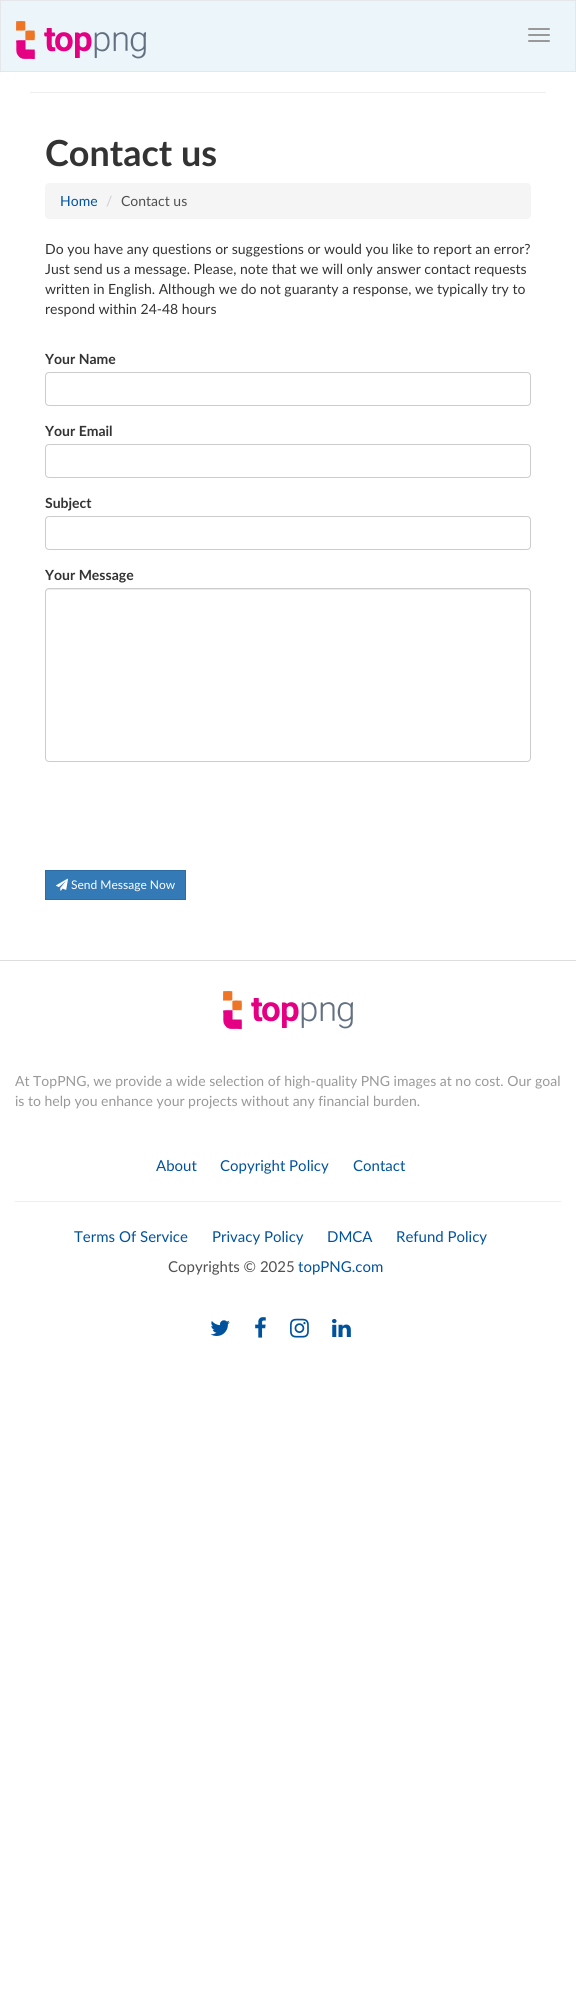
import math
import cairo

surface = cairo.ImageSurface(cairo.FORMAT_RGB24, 576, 2014)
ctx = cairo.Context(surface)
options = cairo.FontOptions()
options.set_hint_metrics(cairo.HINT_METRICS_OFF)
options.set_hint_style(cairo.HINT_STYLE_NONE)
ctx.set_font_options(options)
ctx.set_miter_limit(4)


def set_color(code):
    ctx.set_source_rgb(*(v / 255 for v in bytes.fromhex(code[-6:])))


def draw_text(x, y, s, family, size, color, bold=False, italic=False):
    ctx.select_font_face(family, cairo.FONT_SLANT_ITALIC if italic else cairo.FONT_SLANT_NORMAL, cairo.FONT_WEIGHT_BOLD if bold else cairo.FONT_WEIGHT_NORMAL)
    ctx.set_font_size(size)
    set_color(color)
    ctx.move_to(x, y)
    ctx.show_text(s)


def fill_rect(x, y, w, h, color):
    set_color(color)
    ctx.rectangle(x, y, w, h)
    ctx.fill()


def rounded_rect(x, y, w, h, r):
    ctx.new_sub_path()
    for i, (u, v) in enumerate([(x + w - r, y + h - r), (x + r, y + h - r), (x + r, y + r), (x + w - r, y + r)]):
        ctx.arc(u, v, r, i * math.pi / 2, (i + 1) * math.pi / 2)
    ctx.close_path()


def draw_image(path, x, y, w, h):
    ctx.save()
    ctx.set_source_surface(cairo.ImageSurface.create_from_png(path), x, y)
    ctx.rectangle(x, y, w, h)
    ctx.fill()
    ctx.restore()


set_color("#ffffff")
ctx.paint()
set_color("#ecf6fa")
ctx.rectangle(0.5, 0.5, 575, 71)
ctx.fill_preserve()
set_color("#e5e7eb")
ctx.set_line_width(1)
ctx.stroke()
draw_image("assets/img1.png", 16, 21, 130, 38)
set_color("#999999")
rounded_rect(528, 28, 22, 2, 1)
ctx.fill()
rounded_rect(528, 34, 22, 2, 1)
ctx.fill()
rounded_rect(528, 40, 22, 2, 1)
ctx.fill()
fill_rect(30, 92, 516, 1, "#eeeeee")
draw_text(45, 166, "Contact us", "Lato", 36, "#333333", bold=True)
set_color("#f5f5f5")
rounded_rect(45, 183, 486, 36, 4)
ctx.fill()
draw_text(60, 206, "Home", "Lato", 14, "#01529d")
draw_text(106, 206, "/", "Lato", 14, "#cccccc")
draw_text(121, 206, "Contact us", "Lato", 14, "#505050")
draw_text(45, 254, "Do you have any questions or suggestions or would you like to report an error?", "Lato", 14, "#333333")
draw_text(45, 274, "Just send us a message. Please, note that we will only answer contact requests", "Lato", 14, "#333333")
draw_text(45, 294, "written in English. Although we do not guaranty a response, we typically try to", "Lato", 14, "#333333")
draw_text(45, 314, "respond within 24-48 hours", "Lato", 14, "#333333")
draw_text(45, 364, "Your Name", "Lato", 14, "#333333", bold=True)
rounded_rect(45.5, 372.5, 485, 33, 3.5)
set_color("#cccccc")
ctx.stroke()
draw_text(45, 436, "Your Email", "Lato", 14, "#333333", bold=True)
rounded_rect(45.5, 444.5, 485, 33, 3.5)
set_color("#cccccc")
ctx.stroke()
draw_text(45, 508, "Subject", "Lato", 14, "#333333", bold=True)
rounded_rect(45.5, 516.5, 485, 33, 3.5)
set_color("#cccccc")
ctx.stroke()
draw_text(45, 580, "Your Message", "Lato", 14, "#333333", bold=True)
set_color("#ececec")
ctx.new_path()
ctx.move_to(49, 590)
ctx.line_to(527, 590)
ctx.curve_to(529, 590, 530, 591, 530, 593)
ctx.line_to(530, 592)
ctx.curve_to(530, 590, 529, 589, 527, 589)
ctx.line_to(49, 589)
ctx.curve_to(47, 589, 46, 590, 46, 592)
ctx.line_to(46, 593)
ctx.curve_to(46, 591, 47, 590, 49, 590)
ctx.close_path()
ctx.fill()
rounded_rect(45.5, 588.5, 485, 173, 3.5)
set_color("#cccccc")
ctx.stroke()
set_color("#337ab7")
ctx.rectangle(45.5, 870.5, 140, 29)
ctx.fill_preserve()
set_color("#2e6da4")
ctx.stroke()
draw_image("assets/img2.png", 56, 878, 12, 13)
draw_text(71, 889, "Send Message Now", "Lato", 12, "#ffffff")
fill_rect(0, 960, 576, 1, "#dddddd")
draw_image("assets/img3.png", 223, 991, 130, 38)
draw_text(15, 1086, "At TopPNG, we provide a wide selection of high-quality PNG images at no cost. Our goal", "Lato", 14, "#999999")
draw_text(15, 1106, "is to help you enhance your projects without any financial burden.", "Lato", 14, "#999999")
draw_text(156, 1171, "About", "Lato", 15, "#01529d")
draw_text(220, 1171, "Copyright Policy", "Lato", 15, "#01529d")
draw_text(353, 1171, "Contact", "Lato", 15, "#01529d")
fill_rect(15, 1201, 546, 1, "#eeeeee")
draw_text(74, 1242, "Terms Of Service", "Lato", 15, "#01529d")
draw_text(212, 1242, "Privacy Policy", "Lato", 15, "#01529d")
draw_text(327, 1242, "DMCA", "Lato", 15, "#01529d")
draw_text(396, 1242, "Refund Policy", "Lato", 15, "#01529d")
draw_text(168, 1272, "Copyrights © 2025", "Lato", 15, "#505050")
draw_text(298, 1272, "topPNG.com", "Lato", 15, "#01529d")
draw_image("assets/img4.png", 210, 1320, 20, 16)
draw_image("assets/img5.png", 255, 1317, 11, 21)
draw_image("assets/img6.png", 290, 1318, 19, 20)
draw_image("assets/img7.png", 332, 1319, 19, 18)
surface.write_to_png("output.png")
